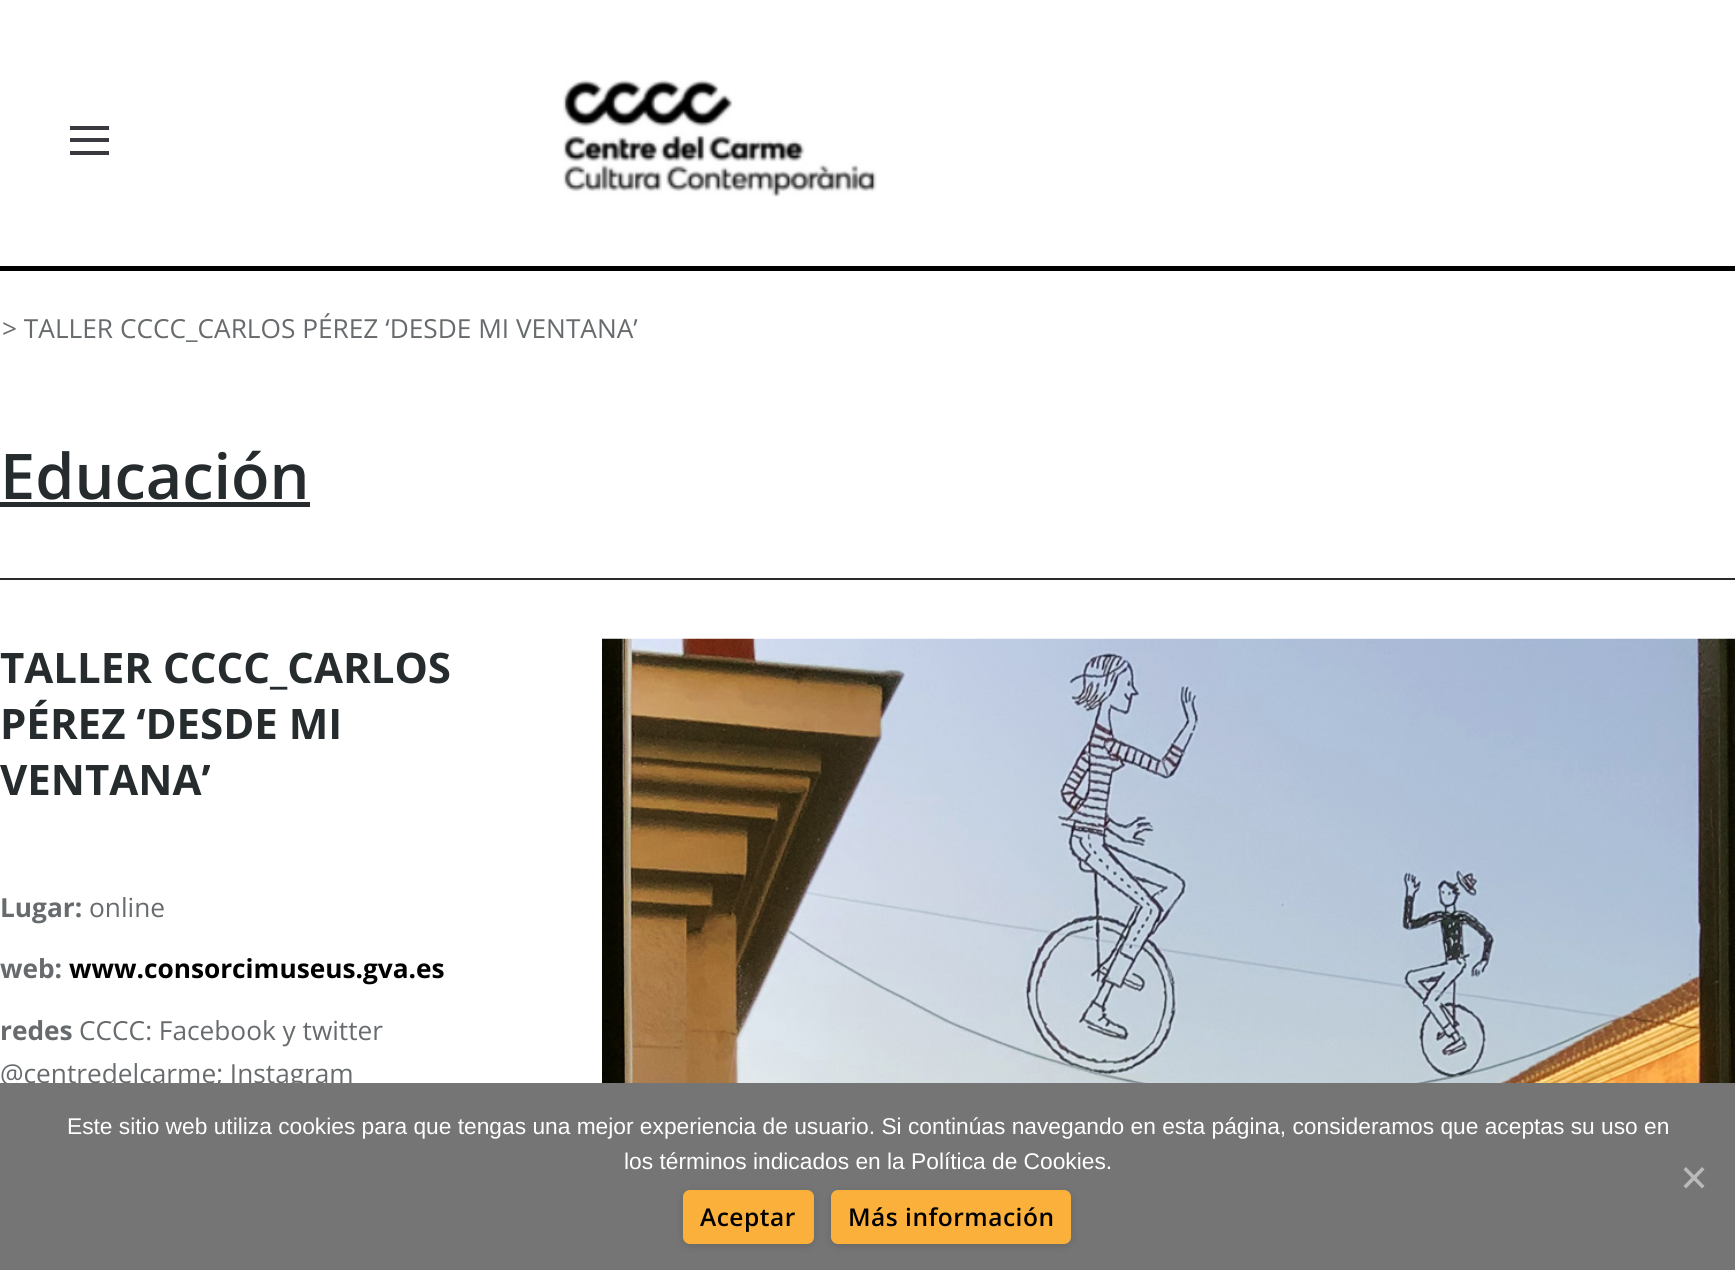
import math
import cairo

surface = cairo.ImageSurface(cairo.FORMAT_RGB24, 1735, 1270)
ctx = cairo.Context(surface)
options = cairo.FontOptions()
options.set_hint_metrics(cairo.HINT_METRICS_OFF)
options.set_hint_style(cairo.HINT_STYLE_NONE)
ctx.set_font_options(options)
ctx.set_miter_limit(4)


def set_color(code):
    ctx.set_source_rgb(*(v / 255 for v in bytes.fromhex(code[-6:])))


def draw_text(x, y, s, family, size, color, bold=False, italic=False):
    ctx.select_font_face(family, cairo.FONT_SLANT_ITALIC if italic else cairo.FONT_SLANT_NORMAL, cairo.FONT_WEIGHT_BOLD if bold else cairo.FONT_WEIGHT_NORMAL)
    ctx.set_font_size(size)
    set_color(color)
    ctx.move_to(x, y)
    ctx.show_text(s)


def draw_spaced(x, y, s, letter, word):
    ctx.move_to(x, y)
    for ch in s:
        ctx.show_text(ch)
        ctx.rel_move_to(letter + word * (ch == ' '), 0)


def fill_rect(x, y, w, h, color):
    set_color(color)
    ctx.rectangle(x, y, w, h)
    ctx.fill()


def rounded_rect(x, y, w, h, r):
    ctx.new_sub_path()
    for i, (u, v) in enumerate([(x + w - r, y + h - r), (x + r, y + h - r), (x + r, y + r), (x + w - r, y + r)]):
        ctx.arc(u, v, r, i * math.pi / 2, (i + 1) * math.pi / 2)
    ctx.close_path()


def draw_shadow(x, y, w, h, r, blur, alpha):
    ctx.push_group_with_content(cairo.CONTENT_ALPHA)
    ctx.set_operator(cairo.OPERATOR_SOURCE)
    for i in range(15, -16, -2):
        e = blur * i / 6
        if min(w, h) + 2 * e > 0:
            ctx.set_source_rgba(0, 0, 0, alpha * math.erfc((i - 1) / 8.5) / 2)
            rounded_rect(x - e, y - e, w + 2 * e, h + 2 * e, max(0, min(r + e + blur * .6, min(w, h) / 2 + e)))
            ctx.fill()
    ctx.mask(ctx.pop_group())


def draw_image(path, x, y, w, h):
    ctx.save()
    ctx.set_source_surface(cairo.ImageSurface.create_from_png(path), x, y)
    ctx.rectangle(x, y, w, h)
    ctx.fill()
    ctx.restore()


set_color("#ffffff")
ctx.paint()
fill_rect(70, 138, 39, 4, "#393940")
fill_rect(70, 126, 39, 4, "#393940")
fill_rect(70, 151, 39, 4, "#393940")
draw_image("assets/img1.png", 563, 80, 314, 117)
fill_rect(0, 266, 1735, 5, "#000000")
draw_text(2, 338, "> TALLER CCCC_CARLOS PÉREZ ‘DESDE MI VENTANA’", "Open Sans", 26.25, "#676b6d")
draw_text(0, 499, "Educación", "Open Sans SemiBold", 63, "#262b2e")
fill_rect(0, 502, 310, 5, "#262b2e")
fill_rect(0, 578, 1735, 2, "#2a2a2a")
draw_text(0, 683, "TALLER CCCC_CARLOS", "Open Sans", 42, "#262b2e", bold=True)
draw_text(0, 739, "PÉREZ ‘DESDE MI", "Open Sans", 42, "#262b2e", bold=True)
draw_text(0, 795, "VENTANA’", "Open Sans", 42, "#262b2e", bold=True)
draw_text(0, 917, "Lugar:", "Open Sans", 26.25, "#676b6d", bold=True)
draw_text(89, 917, "online", "Open Sans", 26.25, "#676b6d")
draw_text(0, 978, "web:", "Open Sans", 26.25, "#676b6d", bold=True)
draw_text(69, 978, "www.consorcimuseus.gva.es", "Open Sans", 26.25, "#000000", bold=True)
draw_text(0, 1040, "redes", "Open Sans", 26.25, "#676b6d", bold=True)
draw_text(79, 1040, "CCCC: Facebook y twitter", "Open Sans", 26.25, "#676b6d")
draw_text(0, 1083, "@centredelcarme; Instagram", "Open Sans", 26.25, "#676b6d")
draw_image("assets/img2.png", 602, 638, 1133, 445)
fill_rect(0, 1083, 1735, 187, "#757575")
draw_text(67, 1134, "Este sitio web utiliza cookies para que tengas una mejor experiencia de usuario. Si continúas navegando en esta página, consideramos que aceptas su uso en", "Liberation Sans", 22.75, "#ffffff")
draw_text(624, 1169, "los términos indicados en la Política de Cookies.", "Liberation Sans", 22.75, "#ffffff")
set_color("#bababa")
ctx.new_path()
ctx.move_to(1702, 1167)
ctx.line_to(1704.5, 1169.5)
ctx.line_to(1686, 1188.5)
ctx.line_to(1683.5, 1186)
ctx.close_path()
ctx.fill()
ctx.new_path()
ctx.move_to(1683.5, 1169.5)
ctx.line_to(1686, 1167)
ctx.line_to(1704.5, 1186)
ctx.line_to(1702, 1188.5)
ctx.close_path()
ctx.fill()
set_color("#000000")
draw_shadow(683, 1192, 131, 54, 7, 5, 0.12)
set_color("#fbb03b")
rounded_rect(683, 1190, 131, 54, 7)
ctx.fill()
ctx.select_font_face("Open Sans SemiBold")
ctx.set_font_size(24.5)
set_color("#000000")
draw_spaced(700, 1226, "Aceptar", 0.5, 0)
set_color("#000000")
draw_shadow(831, 1192, 240, 54, 7, 5, 0.12)
set_color("#fbb03b")
rounded_rect(831, 1190, 240, 54, 7)
ctx.fill()
set_color("#000000")
draw_spaced(848, 1226, "Más información", 0.5, 0)
surface.write_to_png("output.png")
